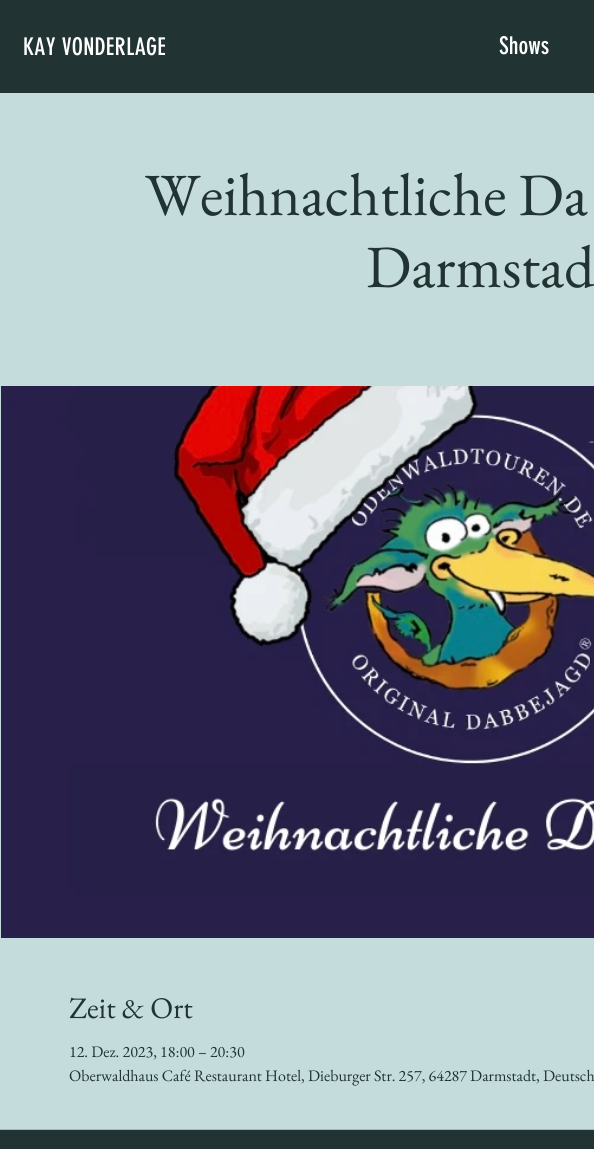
import math
import cairo

surface = cairo.ImageSurface(cairo.FORMAT_RGB24, 594, 1149)
ctx = cairo.Context(surface)
options = cairo.FontOptions()
options.set_hint_metrics(cairo.HINT_METRICS_OFF)
options.set_hint_style(cairo.HINT_STYLE_NONE)
ctx.set_font_options(options)
ctx.set_miter_limit(4)


def set_color(code):
    ctx.set_source_rgb(*(v / 255 for v in bytes.fromhex(code[-6:])))


def draw_text(x, y, s, family, size, color, bold=False, italic=False):
    ctx.select_font_face(family, cairo.FONT_SLANT_ITALIC if italic else cairo.FONT_SLANT_NORMAL, cairo.FONT_WEIGHT_BOLD if bold else cairo.FONT_WEIGHT_NORMAL)
    ctx.set_font_size(size)
    set_color(color)
    ctx.move_to(x, y)
    ctx.show_text(s)


def draw_spaced(x, y, s, letter, word):
    ctx.move_to(x, y)
    for ch in s:
        ctx.show_text(ch)
        ctx.rel_move_to(letter + word * (ch == ' '), 0)


def fill_rect(x, y, w, h, color):
    set_color(color)
    ctx.rectangle(x, y, w, h)
    ctx.fill()


def draw_image(path, x, y, w, h):
    ctx.save()
    ctx.set_source_surface(cairo.ImageSurface.create_from_png(path), x, y)
    ctx.rectangle(x, y, w, h)
    ctx.fill()
    ctx.restore()


set_color("#223333")
ctx.paint()
ctx.select_font_face("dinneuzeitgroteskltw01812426")
ctx.set_font_size(24)
set_color("#ffffff")
draw_spaced(23, 55, "KAY VONDERLAGE", 0.25, 0)
draw_text(499, 54, "Shows", "dinneuzeitgroteskltw01812426", 24, "#ffffff")
fill_rect(0, 93, 594, 1036, "#c4dcdc")
draw_text(145, 215, "Weihnachtliche Da", "EB Garamond", 60, "#223333")
draw_text(366, 287, "Darmstad", "EB Garamond", 60, "#223333")
draw_image("assets/img1.png", 1, 386, 593, 552)
draw_text(69, 1018, "Zeit & Ort", "EB Garamond", 30, "#223333")
draw_text(69, 1057, "12. Dez. 2023, 18:00 – 20:30", "EB Garamond", 16, "#223333")
draw_text(69, 1081, "Oberwaldhaus Café Restaurant Hotel, Dieburger Str. 257, 64287 Darmstadt, Deutsch", "EB Garamond", 16, "#223333")
fill_rect(0, 1129, 594, 1, "#9cbbbb")
surface.write_to_png("output.png")
